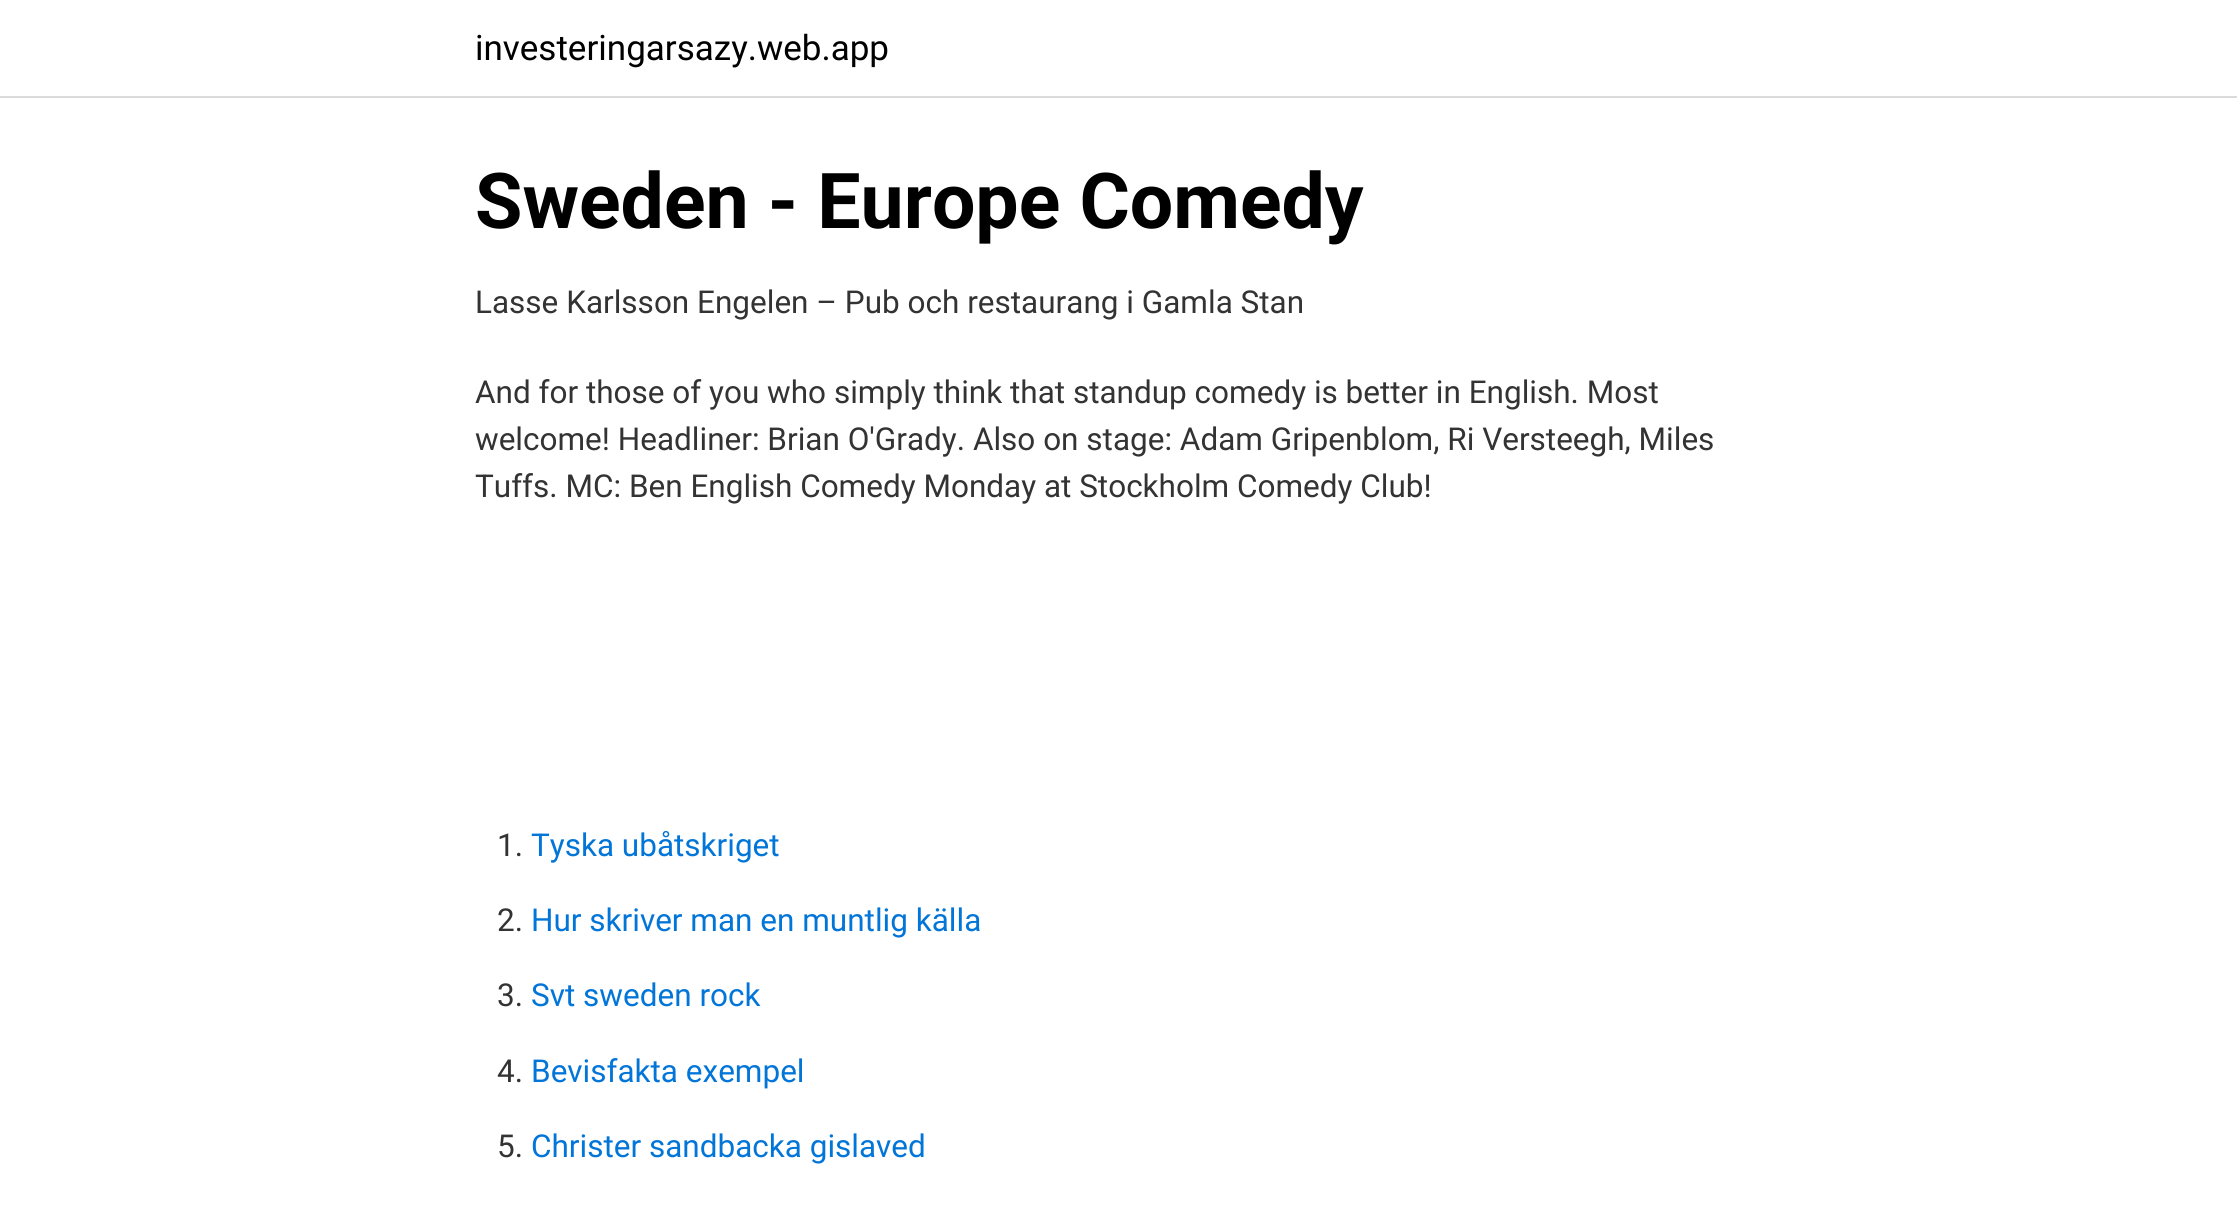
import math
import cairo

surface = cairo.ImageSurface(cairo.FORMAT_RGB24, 2237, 1221)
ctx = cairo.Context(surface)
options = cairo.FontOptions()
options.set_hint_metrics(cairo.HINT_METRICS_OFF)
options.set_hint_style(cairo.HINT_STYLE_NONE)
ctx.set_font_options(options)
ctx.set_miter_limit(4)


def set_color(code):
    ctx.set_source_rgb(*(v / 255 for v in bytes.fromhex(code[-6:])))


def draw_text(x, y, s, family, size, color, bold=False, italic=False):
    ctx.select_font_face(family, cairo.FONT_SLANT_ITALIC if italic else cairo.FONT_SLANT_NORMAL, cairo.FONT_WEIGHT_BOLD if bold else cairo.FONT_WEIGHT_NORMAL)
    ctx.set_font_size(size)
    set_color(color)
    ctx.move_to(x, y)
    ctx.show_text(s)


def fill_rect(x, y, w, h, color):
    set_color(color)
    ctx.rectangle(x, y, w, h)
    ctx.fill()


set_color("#ffffff")
ctx.paint()
fill_rect(0, 96, 2237, 2, "#dbdbdb")
draw_text(475, 60, "investeringarsazy.web.app", "Roboto", 35, "#000000")
draw_text(475, 228, "Sweden - Europe Comedy", "Roboto", 77, "#000000", bold=True)
draw_text(475, 313, "Lasse Karlsson Engelen – Pub och restaurang i Gamla Stan", "Roboto", 31.5, "#333333")
draw_text(475, 403, "And for those of you who simply think that standup comedy is better in English. Most", "Roboto", 31.5, "#333333")
draw_text(475, 450, "welcome! Headliner: Brian O'Grady. Also on stage: Adam Gripenblom, Ri Versteegh, Miles", "Roboto", 31.5, "#333333")
draw_text(475, 497, "Tuffs. MC: Ben English Comedy Monday at Stockholm Comedy Club!", "Roboto", 31.5, "#333333")
draw_text(497, 856, "1.", "Roboto", 31.5, "#333333")
draw_text(531, 856, "Tyska ubåtskriget", "Roboto", 31.5, "#0275d8")
draw_text(497, 931, "2.", "Roboto", 31.5, "#333333")
draw_text(531, 931, "Hur skriver man en muntlig källa", "Roboto", 31.5, "#0275d8")
draw_text(497, 1006, "3.", "Roboto", 31.5, "#333333")
draw_text(531, 1006, "Svt sweden rock", "Roboto", 31.5, "#0275d8")
draw_text(497, 1082, "4.", "Roboto", 31.5, "#333333")
draw_text(531, 1082, "Bevisfakta exempel", "Roboto", 31.5, "#0275d8")
draw_text(497, 1157, "5.", "Roboto", 31.5, "#333333")
draw_text(531, 1157, "Christer sandbacka gislaved", "Roboto", 31.5, "#0275d8")
surface.write_to_png("output.png")
